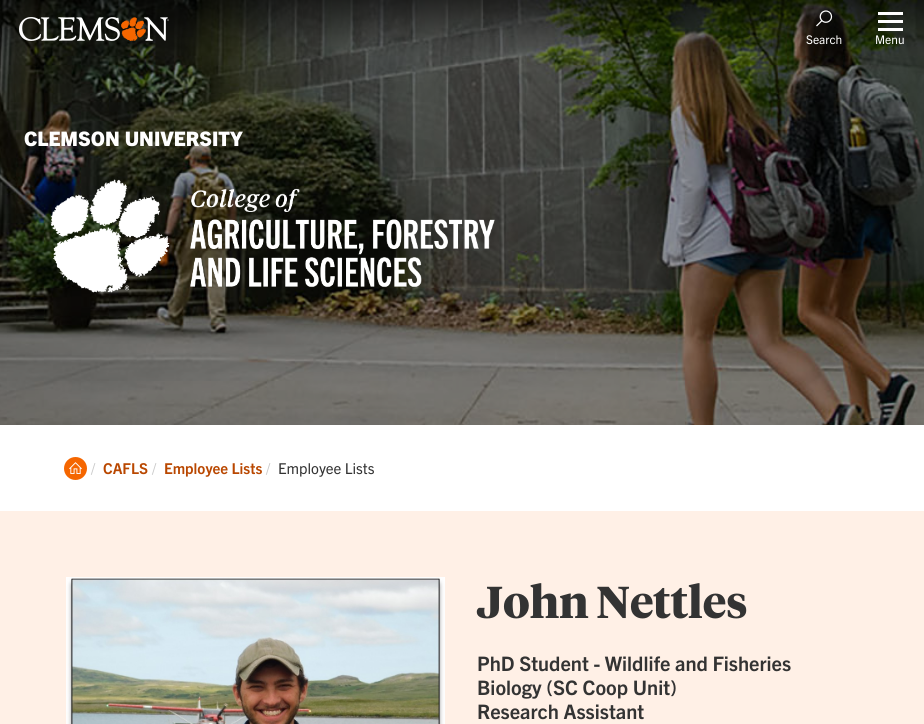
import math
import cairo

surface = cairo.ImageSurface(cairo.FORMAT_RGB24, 924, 724)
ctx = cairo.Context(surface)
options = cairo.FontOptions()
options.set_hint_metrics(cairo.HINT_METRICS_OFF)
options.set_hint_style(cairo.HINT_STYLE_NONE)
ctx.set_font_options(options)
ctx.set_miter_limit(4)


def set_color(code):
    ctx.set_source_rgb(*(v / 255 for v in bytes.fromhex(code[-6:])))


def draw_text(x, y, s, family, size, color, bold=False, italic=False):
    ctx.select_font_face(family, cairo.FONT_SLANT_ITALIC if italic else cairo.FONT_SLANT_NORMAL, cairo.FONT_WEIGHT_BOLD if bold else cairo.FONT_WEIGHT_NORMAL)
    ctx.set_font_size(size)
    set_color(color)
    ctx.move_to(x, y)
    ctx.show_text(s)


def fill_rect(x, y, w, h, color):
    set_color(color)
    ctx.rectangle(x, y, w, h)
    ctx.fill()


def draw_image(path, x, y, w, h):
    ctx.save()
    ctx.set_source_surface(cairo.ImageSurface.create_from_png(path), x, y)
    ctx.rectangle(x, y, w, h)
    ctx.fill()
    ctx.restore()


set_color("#ffffff")
ctx.paint()
draw_image("assets/img3.png", 0, 0, 924, 425)
draw_image("assets/img1.png", 19, 17, 150, 24)
draw_image("assets/img2.png", 816, 10, 17, 17)
draw_text(806, 44, "Search", "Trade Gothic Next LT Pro", 12, "#ffffff")
fill_rect(878, 12, 25, 3, "#ffffff")
fill_rect(878, 20, 25, 3, "#ffffff")
fill_rect(878, 28, 25, 3, "#ffffff")
draw_text(875, 44, "Menu", "Trade Gothic Next LT Pro", 12, "#ffffff")
draw_text(24, 146, "CLEMSON UNIVERSITY", "Trade Gothic Next LT Pro ExtraBold", 20, "#ffffff")
draw_image("assets/img4.png", 50, 179, 445, 114)
set_color("#f56600")
ctx.arc(75.5, 468.5, 11.5, 0, 2 * math.pi)
ctx.fill()
draw_image("assets/img5.png", 69, 462, 13, 12)
draw_text(91, 474, "/", "Trade Gothic Next LT Pro", 15, "#cacaca")
draw_text(103, 474, "CAFLS", "Trade Gothic Next LT Pro", 15, "#b94700", bold=True)
draw_text(152, 474, "/", "Trade Gothic Next LT Pro", 15, "#cacaca")
draw_text(164, 474, "Employee Lists", "Trade Gothic Next LT Pro", 15, "#b94700", bold=True)
draw_text(266, 474, "/", "Trade Gothic Next LT Pro", 15, "#cacaca")
draw_text(278, 474, "Employee Lists", "Trade Gothic Next LT Pro", 15, "#333333")
fill_rect(0, 511, 924, 213, "#fff0e6")
draw_image("assets/img6.png", 66, 577, 379, 147)
draw_text(477, 618, "John Nettles", "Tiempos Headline", 44.5, "#333333", bold=True)
draw_text(477, 671, "PhD Student - Wildlife and Fisheries", "Trade Gothic Next LT Pro", 20, "#333333", bold=True)
draw_text(477, 695, "Biology (SC Coop Unit)", "Trade Gothic Next LT Pro", 20, "#333333", bold=True)
draw_text(477, 719, "Research Assistant", "Trade Gothic Next LT Pro", 20, "#333333", bold=True)
surface.write_to_png("output.png")
